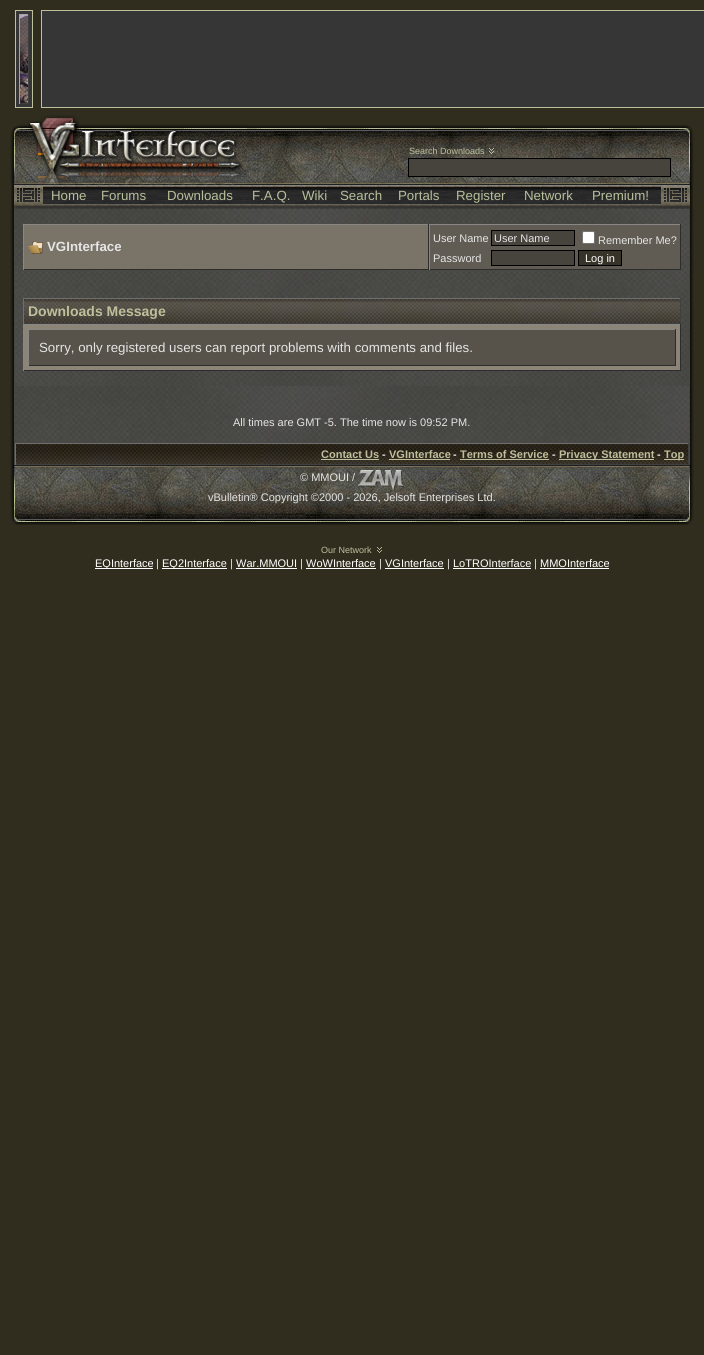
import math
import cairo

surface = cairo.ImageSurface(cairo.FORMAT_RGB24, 704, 1355)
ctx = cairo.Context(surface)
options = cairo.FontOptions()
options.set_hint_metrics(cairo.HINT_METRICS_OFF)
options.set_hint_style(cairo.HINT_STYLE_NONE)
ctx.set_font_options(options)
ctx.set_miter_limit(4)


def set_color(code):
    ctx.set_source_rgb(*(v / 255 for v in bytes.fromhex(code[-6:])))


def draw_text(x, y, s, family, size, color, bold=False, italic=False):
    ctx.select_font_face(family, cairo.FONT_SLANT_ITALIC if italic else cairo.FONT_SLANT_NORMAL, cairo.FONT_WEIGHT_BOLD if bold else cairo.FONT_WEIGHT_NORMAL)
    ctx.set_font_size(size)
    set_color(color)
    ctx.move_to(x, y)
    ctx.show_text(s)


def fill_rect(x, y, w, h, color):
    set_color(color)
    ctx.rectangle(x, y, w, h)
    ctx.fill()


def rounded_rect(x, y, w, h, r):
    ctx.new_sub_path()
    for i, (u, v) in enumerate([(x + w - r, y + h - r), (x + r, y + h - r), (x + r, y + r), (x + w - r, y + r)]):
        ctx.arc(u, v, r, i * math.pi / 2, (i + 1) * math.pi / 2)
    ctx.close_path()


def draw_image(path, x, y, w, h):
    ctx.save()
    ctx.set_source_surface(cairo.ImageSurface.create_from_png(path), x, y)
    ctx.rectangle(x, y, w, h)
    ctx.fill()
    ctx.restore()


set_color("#302d1f")
ctx.paint()
set_color("#363636")
ctx.rectangle(15.5, 10.5, 17, 97)
ctx.fill_preserve()
set_color("#bebf9b")
ctx.set_line_width(1)
ctx.stroke()
draw_image("assets/img1.png", 20, 15, 8, 88)
fill_rect(19, 14, 10, 1, "#a4a4a4")
fill_rect(28, 14, 1, 90, "#404040")
fill_rect(19, 103, 10, 1, "#404040")
fill_rect(19, 14, 1, 90, "#a4a4a4")
set_color("#363636")
ctx.rectangle(41.5, 10.5, 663, 97)
ctx.fill_preserve()
set_color("#bebf9b")
ctx.stroke()
draw_image("assets/img2.png", 247, 125, 442, 60)
draw_image("assets/img3.png", 10, 115, 237, 70)
draw_text(409, 154, "Search Downloads", "Liberation Sans", 9, "#bebf9b")
draw_image("assets/img4.png", 489, 148, 5, 6)
set_color("#47433d")
ctx.rectangle(408.5, 158.5, 262, 18)
ctx.fill_preserve()
set_color("#000000")
ctx.stroke()
draw_image("assets/img5.png", 679, 125, 15, 60)
draw_image("assets/img6.png", 11, 185, 33, 24)
draw_image("assets/img7.png", 44, 185, 616, 24)
draw_text(51, 200, "Home", "Liberation Sans", 13.3, "#b7bf9b")
draw_text(101, 200, "Forums", "Liberation Sans", 13.3, "#b7bf9b")
draw_text(167, 200, "Downloads", "Liberation Sans", 13.3, "#b7bf9b")
draw_text(252, 200, "F.A.Q.", "Liberation Sans", 13.3, "#b7bf9b")
draw_text(302, 200, "Wiki", "Liberation Sans", 13.3, "#b7bf9b")
draw_text(340, 200, "Search", "Liberation Sans", 13.3, "#b7bf9b")
draw_text(398, 200, "Portals", "Liberation Sans", 13.3, "#b7bf9b")
draw_text(456, 200, "Register", "Liberation Sans", 13.3, "#b7bf9b")
draw_text(524, 200, "Network", "Liberation Sans", 13.3, "#b7bf9b")
draw_text(592, 200, "Premium!", "Liberation Sans", 13.3, "#b7bf9b")
draw_image("assets/img8.png", 660, 185, 33, 24)
draw_image("assets/img9.png", 10, 209, 5, 256)
draw_image("assets/img10.png", 15, 209, 674, 177)
fill_rect(24, 225, 404, 44, "#797368")
fill_rect(23, 224, 658, 1, "#898785")
fill_rect(428, 224, 1, 46, "#2e2d2d")
fill_rect(23, 269, 406, 1, "#2e2d2d")
fill_rect(23, 224, 1, 46, "#898785")
draw_image("assets/img11.png", 28, 241, 15, 13)
draw_text(47, 251, "VGInterface", "Liberation Sans", 13.3, "#e5e5e5", bold=True)
fill_rect(430, 225, 250, 44, "#615c53")
fill_rect(680, 224, 1, 46, "#2e2d2d")
fill_rect(429, 269, 252, 1, "#2e2d2d")
fill_rect(429, 224, 1, 46, "#898785")
draw_text(433, 242, "User Name", "Liberation Sans", 11, "#e5e5e5")
set_color("#47433d")
ctx.rectangle(491.5, 230.5, 83, 15)
ctx.fill_preserve()
set_color("#000000")
ctx.stroke()
draw_text(494, 242, "User Name", "Liberation Sans", 11, "#e5e5e5")
set_color("#ffffff")
rounded_rect(582.5, 231.5, 12, 12, 1.5)
ctx.fill_preserve()
set_color("#767676")
ctx.stroke()
draw_text(598, 244, "Remember Me?", "Liberation Sans", 11, "#e5e5e5")
draw_text(433, 262, "Password", "Liberation Sans", 11, "#e5e5e5")
set_color("#47433d")
ctx.rectangle(491.5, 250.5, 83, 15)
ctx.fill_preserve()
set_color("#000000")
ctx.stroke()
set_color("#383329")
ctx.rectangle(578.5, 250.5, 43, 15)
ctx.fill_preserve()
set_color("#000000")
ctx.stroke()
draw_text(585, 262, "Log in", "Liberation Sans", 11, "#ffffff")
draw_image("assets/img12.png", 24, 299, 656, 24)
fill_rect(23, 298, 658, 1, "#6f6f6f")
fill_rect(680, 298, 1, 26, "#404040")
fill_rect(23, 323, 658, 1, "#404040")
fill_rect(23, 298, 1, 26, "#6f6f6f")
draw_text(28, 316, "Downloads Message", "Liberation Sans", 14, "#bebf9b", bold=True)
fill_rect(24, 325, 656, 45, "#8b8477")
fill_rect(23, 324, 658, 1, "#898785")
fill_rect(680, 324, 1, 47, "#2e2d2d")
fill_rect(23, 370, 658, 1, "#2e2d2d")
fill_rect(23, 324, 1, 47, "#898785")
fill_rect(29, 330, 646, 35, "#57524a")
fill_rect(28, 329, 648, 1, "#898785")
fill_rect(675, 329, 1, 37, "#2e2d2d")
fill_rect(28, 365, 648, 1, "#2e2d2d")
fill_rect(28, 329, 1, 37, "#898785")
draw_text(39, 352, "Sorry, only registered users can report problems with comments and files.", "Liberation Sans", 13.3, "#e5e5e5")
draw_image("assets/img13.png", 15, 386, 674, 57)
draw_text(233, 426, "All times are GMT -5. The time now is 09:52 PM.", "Liberation Sans", 11, "#e5e5e5")
draw_image("assets/img14.png", 16, 444, 672, 20)
fill_rect(15, 443, 674, 1, "#6f6f6f")
fill_rect(688, 443, 1, 22, "#404040")
fill_rect(15, 464, 674, 1, "#404040")
fill_rect(15, 443, 1, 22, "#6f6f6f")
draw_text(321, 458, "Contact Us", "Liberation Sans", 11, "#bebf9b", bold=True)
fill_rect(321, 459, 58, 1, "#bebf9b")
draw_text(382, 458, "-", "Liberation Sans", 11, "#e5e5e5", bold=True)
draw_text(389, 458, "VGInterface", "Liberation Sans", 11, "#bebf9b", bold=True)
fill_rect(389, 459, 61, 1, "#bebf9b")
draw_text(453, 458, "-", "Liberation Sans", 11, "#e5e5e5", bold=True)
draw_text(460, 458, "Terms of Service", "Liberation Sans", 11, "#bebf9b", bold=True)
fill_rect(460, 459, 89, 1, "#bebf9b")
draw_text(552, 458, "-", "Liberation Sans", 11, "#e5e5e5", bold=True)
fill_rect(559, 459, 95, 1, "#bebf9b")
draw_text(559, 458, "Privacy Statement", "Liberation Sans", 11, "#bebf9b", bold=True)
draw_text(657, 458, "-", "Liberation Sans", 11, "#e5e5e5", bold=True)
fill_rect(664, 459, 20, 1, "#bebf9b")
draw_text(664, 458, "Top", "Liberation Sans", 11, "#bebf9b", bold=True)
draw_image("assets/img15.png", 689, 209, 5, 256)
draw_image("assets/img16.png", 15, 465, 674, 60)
draw_image("assets/img17.png", 10, 465, 15, 60)
draw_text(300, 481, "© MMOUI /", "Liberation Sans", 11, "#e5e5e5")
draw_image("assets/img18.png", 358, 470, 46, 21)
draw_text(208, 501, "vBulletin® Copyright ©2000 - 2026, Jelsoft Enterprises Ltd.", "Liberation Sans", 11, "#e5e5e5")
draw_image("assets/img19.png", 679, 465, 15, 60)
draw_text(321, 553, "Our Network", "Liberation Sans", 9, "#bebf9b")
draw_image("assets/img20.png", 377, 547, 5, 6)
fill_rect(95, 568, 58, 1, "#ffffff")
draw_text(95, 567, "EQInterface", "Liberation Sans", 11, "#ffffff")
draw_text(156, 567, "|", "Liberation Sans", 11, "#e5e5e5")
fill_rect(162, 568, 65, 1, "#ffffff")
draw_text(162, 567, "EQ2Interface", "Liberation Sans", 11, "#ffffff")
draw_text(230, 567, "|", "Liberation Sans", 11, "#e5e5e5")
draw_text(236, 567, "War.MMOUI", "Liberation Sans", 11, "#ffffff")
fill_rect(236, 568, 61, 1, "#ffffff")
draw_text(300, 567, "|", "Liberation Sans", 11, "#e5e5e5")
draw_text(306, 567, "WoWInterface", "Liberation Sans", 11, "#ffffff")
fill_rect(306, 568, 70, 1, "#ffffff")
draw_text(379, 567, "|", "Liberation Sans", 11, "#e5e5e5")
draw_text(385, 567, "VGInterface", "Liberation Sans", 11, "#ffffff")
fill_rect(385, 568, 59, 1, "#ffffff")
draw_text(447, 567, "|", "Liberation Sans", 11, "#e5e5e5")
draw_text(453, 567, "LoTROInterface", "Liberation Sans", 11, "#ffffff")
fill_rect(453, 568, 78, 1, "#ffffff")
draw_text(534, 567, "|", "Liberation Sans", 11, "#e5e5e5")
draw_text(540, 567, "MMOInterface", "Liberation Sans", 11, "#ffffff")
fill_rect(540, 568, 69, 1, "#ffffff")
surface.write_to_png("output.png")
